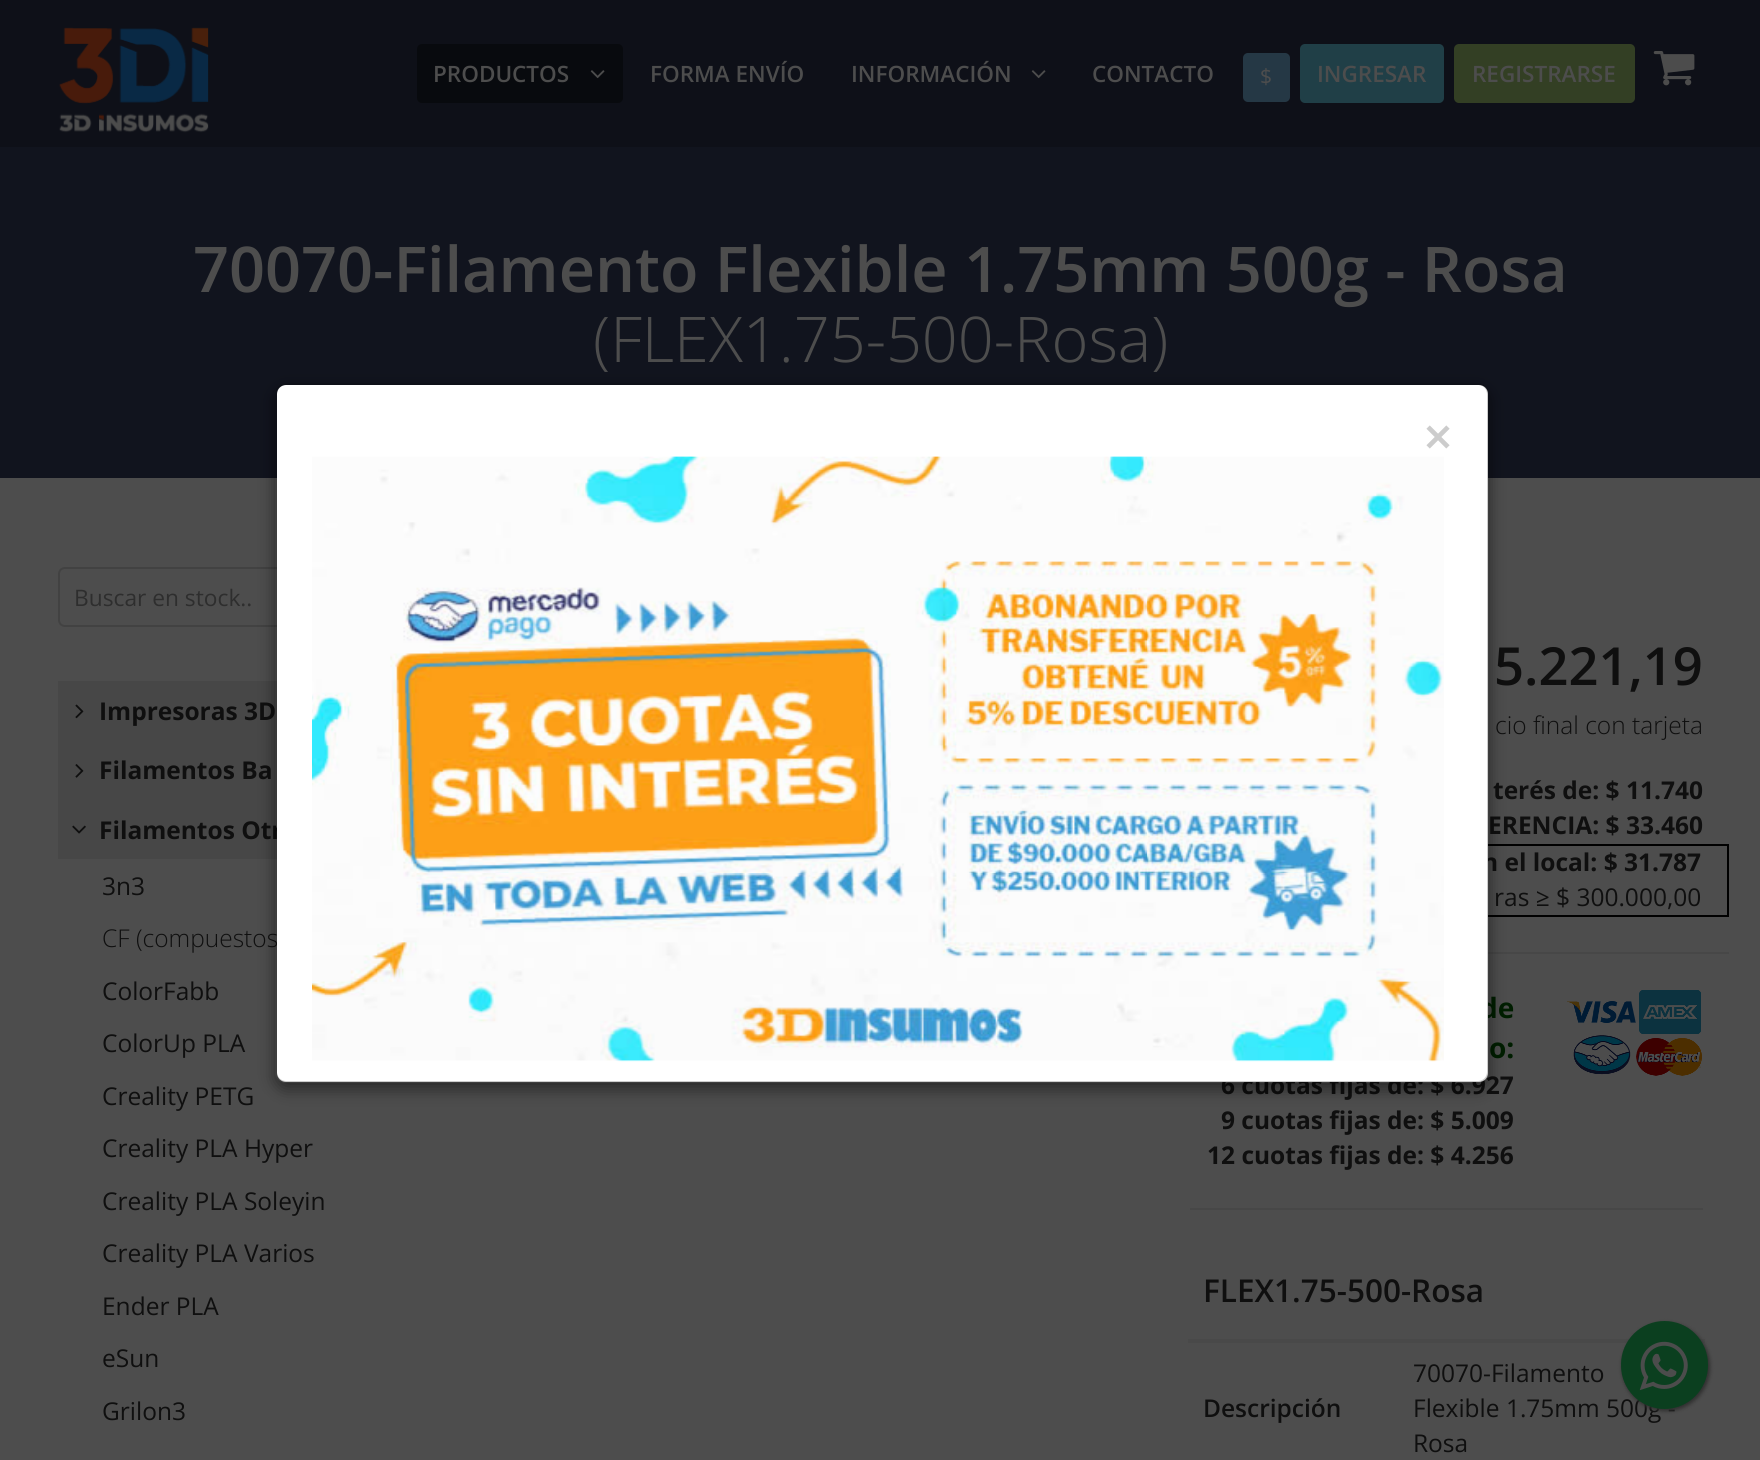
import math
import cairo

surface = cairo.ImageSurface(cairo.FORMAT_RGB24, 1760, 1460)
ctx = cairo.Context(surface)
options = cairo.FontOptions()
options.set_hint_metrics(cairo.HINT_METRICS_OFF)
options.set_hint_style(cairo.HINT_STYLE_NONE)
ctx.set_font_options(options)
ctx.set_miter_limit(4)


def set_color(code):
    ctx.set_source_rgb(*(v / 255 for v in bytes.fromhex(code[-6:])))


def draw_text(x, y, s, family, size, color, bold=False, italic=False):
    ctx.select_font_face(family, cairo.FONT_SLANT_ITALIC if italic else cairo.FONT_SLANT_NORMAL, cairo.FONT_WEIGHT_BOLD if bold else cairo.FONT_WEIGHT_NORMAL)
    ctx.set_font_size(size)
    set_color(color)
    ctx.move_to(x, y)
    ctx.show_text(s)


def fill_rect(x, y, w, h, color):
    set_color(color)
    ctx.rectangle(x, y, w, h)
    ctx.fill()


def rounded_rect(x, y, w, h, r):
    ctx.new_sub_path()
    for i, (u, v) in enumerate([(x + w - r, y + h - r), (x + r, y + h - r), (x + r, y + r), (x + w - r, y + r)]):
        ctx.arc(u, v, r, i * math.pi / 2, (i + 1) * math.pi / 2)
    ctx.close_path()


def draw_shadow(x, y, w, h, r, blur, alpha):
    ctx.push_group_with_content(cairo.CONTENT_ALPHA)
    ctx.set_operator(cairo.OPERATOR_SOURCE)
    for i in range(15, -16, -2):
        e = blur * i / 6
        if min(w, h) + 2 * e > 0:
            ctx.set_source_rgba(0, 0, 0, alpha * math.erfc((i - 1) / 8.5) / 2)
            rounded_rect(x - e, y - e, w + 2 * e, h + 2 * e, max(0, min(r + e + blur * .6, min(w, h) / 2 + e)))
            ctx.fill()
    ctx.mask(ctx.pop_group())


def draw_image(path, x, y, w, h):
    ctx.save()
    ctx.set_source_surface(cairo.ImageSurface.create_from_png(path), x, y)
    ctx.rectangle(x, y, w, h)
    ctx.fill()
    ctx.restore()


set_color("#4d4d4d")
ctx.paint()
fill_rect(0, 0, 1760, 147, "#0e1018")
draw_image("assets/img1.png", 59, 27, 150, 106)
set_color("#080a0e")
rounded_rect(417, 44, 206, 59, 5)
ctx.fill()
draw_text(433, 82, "PRODUCTOS", "Open Sans SemiBold", 22.5, "#4d4d4d")
draw_image("assets/img2.png", 590, 70, 15, 9)
draw_text(650, 82, "FORMA ENVÍO", "Open Sans SemiBold", 22.5, "#4d4d4d")
draw_text(851, 82, "INFORMACIÓN", "Open Sans SemiBold", 22.5, "#4d4d4d")
draw_image("assets/img3.png", 1031, 70, 15, 9)
draw_text(1092, 82, "CONTACTO", "Open Sans SemiBold", 22.5, "#4d4d4d")
set_color("#253845")
rounded_rect(1243, 53, 47, 49, 5)
ctx.fill()
draw_text(1260, 84, "$", "Open Sans", 21, "#4d4d4d")
set_color("#203f47")
rounded_rect(1300, 44, 144, 59, 5)
ctx.fill()
draw_text(1317, 82, "INGRESAR", "Open Sans SemiBold", 22.5, "#4d4d4d")
set_color("#333f24")
rounded_rect(1454, 44, 181, 59, 5)
ctx.fill()
draw_text(1472, 82, "REGISTRARSE", "Open Sans SemiBold", 22.5, "#4d4d4d")
draw_image("assets/img4.png", 1653, 51, 42, 35)
fill_rect(0, 147, 1760, 331, "#11141e")
draw_text(193, 292, "70070-Filamento Flexible 1.75mm 500g - Rosa", "Open Sans SemiBold", 63, "#4d4d4d")
draw_text(593, 362, "(FLEX1.75-500-Rosa)", "Open Sans Light", 63, "#4d4d4d")
ctx.new_path()
ctx.move_to(65, 568)
ctx.line_to(503, 568)
ctx.line_to(503, 626)
ctx.line_to(65, 626)
ctx.curve_to(61.5, 626, 59, 623.5, 59, 620)
ctx.line_to(59, 574)
ctx.curve_to(59, 570.5, 61.5, 568, 65, 568)
ctx.close_path()
set_color("#424242")
ctx.stroke()
draw_text(74, 606, "Buscar en stock..", "Open Sans", 22.75, "#2e2e2e")
fill_rect(58, 681, 219, 178, "#474747")
draw_image("assets/img5.png", 75, 704, 9, 15)
draw_text(99, 720, "Impresoras 3D", "Open Sans", 24.5, "#0f0f0f", bold=True)
draw_image("assets/img6.png", 75, 764, 9, 14)
draw_text(99, 779, "Filamentos Ba", "Open Sans", 24.5, "#0f0f0f", bold=True)
draw_image("assets/img7.png", 72, 825, 14, 9)
draw_text(99, 839, "Filamentos Otr", "Open Sans", 24.5, "#0f0f0f", bold=True)
draw_text(102, 895, "3n3", "Open Sans", 24.5, "#0f0f0f")
draw_text(102, 947, "CF (compuestos", "Open Sans Light", 24.5, "#0f0f0f")
draw_text(102, 1000, "ColorFabb", "Open Sans", 24.5, "#0f0f0f")
draw_text(102, 1052, "ColorUp PLA", "Open Sans", 24.5, "#0f0f0f")
draw_text(102, 1105, "Creality PETG", "Open Sans", 24.5, "#0f0f0f")
draw_text(102, 1157, "Creality PLA Hyper", "Open Sans", 24.5, "#0f0f0f")
draw_text(102, 1210, "Creality PLA Soleyin", "Open Sans", 24.5, "#0f0f0f")
draw_text(102, 1262, "Creality PLA Varios", "Open Sans", 24.5, "#0f0f0f")
draw_text(102, 1315, "Ender PLA", "Open Sans", 24.5, "#0f0f0f")
draw_text(102, 1367, "eSun", "Open Sans", 24.5, "#0f0f0f")
draw_text(102, 1420, "Grilon3", "Open Sans", 24.5, "#0f0f0f")
draw_text(1494, 685, "5.221,19", "Open Sans SemiBold", 52.5, "#0f0f0f")
draw_text(1495, 734, "cio final con tarjeta", "Open Sans Light", 24.5, "#0f0f0f")
draw_text(1493, 799, "terés de: $ 11.740", "Open Sans", 24.5, "#0f0f0f", bold=True)
draw_text(1488, 834, "ERENCIA: $ 33.460", "Open Sans", 24.5, "#0f0f0f", bold=True)
ctx.rectangle(1165, 845, 563, 71)
set_color("#000000")
ctx.stroke()
draw_text(1482, 871, "n el local: $ 31.787", "Open Sans", 24.5, "#0f0f0f", bold=True)
draw_text(1494, 906, "ras ≥ $ 300.000,00", "Open Sans", 24.5, "#0f0f0f")
fill_rect(1488, 952, 241, 2, "#474747")
draw_text(1480, 1018, "de", "Open Sans", 28, "#001e00", bold=True)
draw_text(1489, 1058, "o:", "Open Sans", 28, "#001e00", bold=True)
draw_text(1221, 1094, "6 cuotas fijas de: $ 6.927", "Open Sans", 24.5, "#0f0f0f", bold=True)
draw_text(1221, 1129, "9 cuotas fijas de: $ 5.009", "Open Sans", 24.5, "#0f0f0f", bold=True)
draw_text(1207, 1164, "12 cuotas fijas de: $ 4.256", "Open Sans", 24.5, "#0f0f0f", bold=True)
draw_image("assets/img8.png", 1567, 990, 135, 86)
fill_rect(1190, 1208, 513, 2, "#474747")
fill_rect(1188, 1339, 517, 4, "#494949")
draw_text(1203, 1302, "FLEX1.75-500-Rosa", "Open Sans SemiBold", 31.5, "#0f0f0f")
draw_text(1203, 1417, "Descripción", "Open Sans SemiBold", 24.5, "#0f0f0f")
draw_text(1413, 1382, "70070-Filamento", "Open Sans", 24.5, "#0f0f0f")
draw_text(1413, 1417, "Flexible 1.75mm 500g -", "Open Sans", 24.5, "#0f0f0f")
draw_text(1413, 1452, "Rosa", "Open Sans", 24.5, "#0f0f0f")
ctx.save()
ctx.set_fill_rule(cairo.FILL_RULE_EVEN_ODD)
ctx.new_path()
ctx.move_to(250, 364)
ctx.line_to(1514, 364)
ctx.line_to(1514, 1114)
ctx.line_to(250, 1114)
ctx.close_path()
ctx.move_to(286, 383)
ctx.line_to(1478, 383)
ctx.curve_to(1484, 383, 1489, 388, 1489, 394)
ctx.line_to(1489, 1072)
ctx.curve_to(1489, 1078, 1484, 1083, 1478, 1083)
ctx.line_to(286, 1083)
ctx.curve_to(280, 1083, 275, 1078, 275, 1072)
ctx.line_to(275, 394)
ctx.curve_to(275, 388, 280, 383, 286, 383)
ctx.close_path()
ctx.clip()
set_color("#000000")
draw_shadow(275, 389, 1214, 700, 11, 8, 0.5)
ctx.restore()
set_color("#ffffff")
rounded_rect(277, 385, 1211, 697, 9)
ctx.fill()
rounded_rect(276, 384, 1212, 698, 10)
ctx.set_source_rgba(0, 0, 0, 0.2)
ctx.stroke()
draw_text(1422, 451, "✕", "DejaVu Sans", 37, "#cccccc", bold=True)
draw_image("assets/img9.png", 312, 456, 1132, 606)
set_color("#2e2e2e")
draw_shadow(1622, 1323, 88, 88, 44, 2, 1)
set_color("#0b3f1f")
rounded_rect(1621, 1321, 87, 88, 43.5)
ctx.fill()
draw_image("assets/img10.png", 1639, 1341, 49, 50)
surface.write_to_png("output.png")
